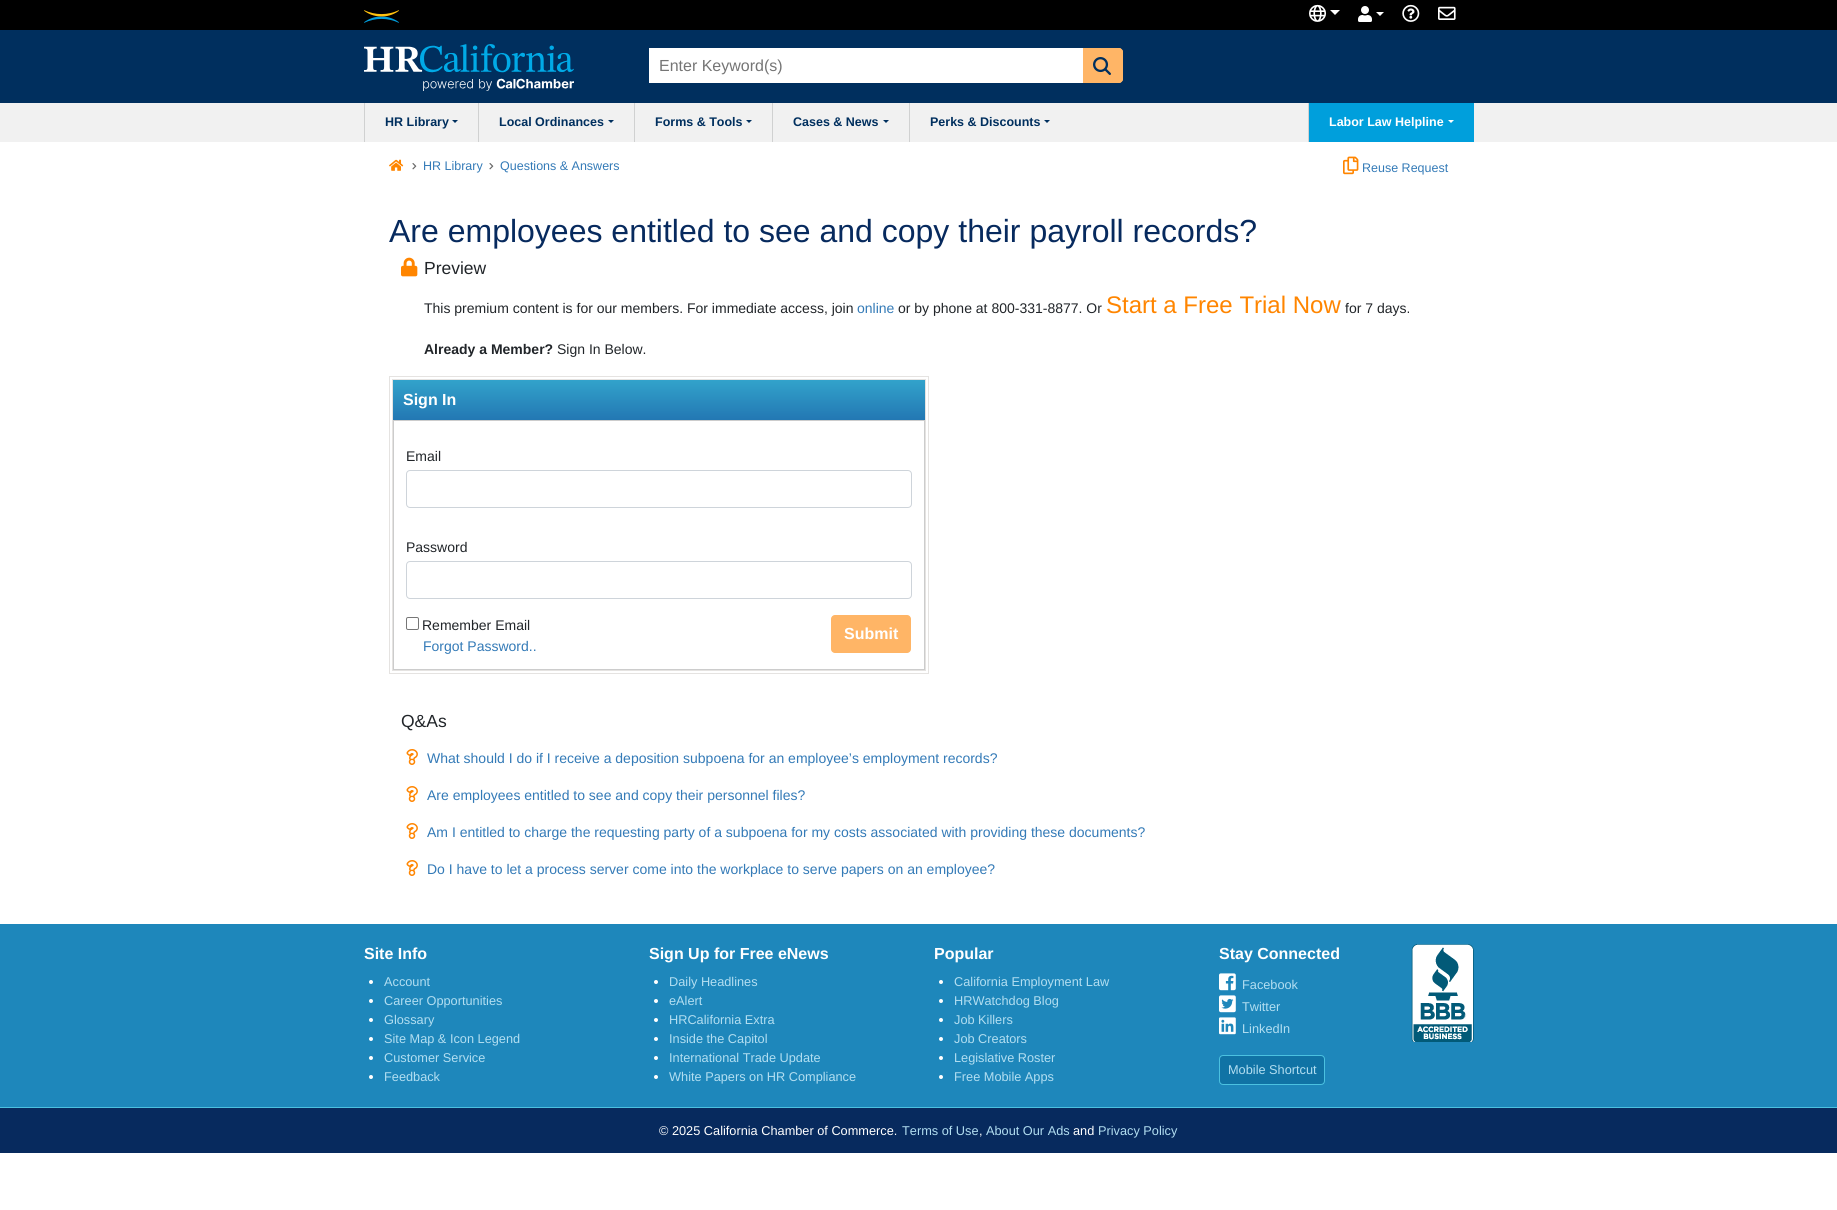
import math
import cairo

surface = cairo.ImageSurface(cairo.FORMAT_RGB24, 1837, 1210)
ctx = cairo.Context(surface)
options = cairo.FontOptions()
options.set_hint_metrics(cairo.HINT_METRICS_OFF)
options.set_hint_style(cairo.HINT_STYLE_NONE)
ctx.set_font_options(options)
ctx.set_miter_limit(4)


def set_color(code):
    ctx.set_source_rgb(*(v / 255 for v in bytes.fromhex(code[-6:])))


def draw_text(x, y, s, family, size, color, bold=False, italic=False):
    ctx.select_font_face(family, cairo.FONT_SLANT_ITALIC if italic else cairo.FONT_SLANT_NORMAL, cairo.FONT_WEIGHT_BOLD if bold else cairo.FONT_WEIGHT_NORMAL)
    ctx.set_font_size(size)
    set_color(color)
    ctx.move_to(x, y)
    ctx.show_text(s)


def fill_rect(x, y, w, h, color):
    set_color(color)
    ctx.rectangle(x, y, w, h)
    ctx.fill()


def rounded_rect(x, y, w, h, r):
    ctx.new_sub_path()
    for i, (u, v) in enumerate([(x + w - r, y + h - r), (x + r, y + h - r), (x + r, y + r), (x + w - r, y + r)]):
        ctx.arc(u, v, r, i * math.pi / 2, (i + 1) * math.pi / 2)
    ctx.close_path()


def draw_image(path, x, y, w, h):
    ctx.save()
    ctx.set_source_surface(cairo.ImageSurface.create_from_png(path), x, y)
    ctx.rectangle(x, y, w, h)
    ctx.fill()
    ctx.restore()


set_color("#ffffff")
ctx.paint()
fill_rect(0, 30, 1837, 73, "#002f5e")
fill_rect(0, 0, 1837, 30, "#000000")
draw_image("assets/img1.png", 364, 10, 35, 13)
draw_image("assets/img2.png", 1309, 4, 17, 18)
set_color("#ffffff")
ctx.new_path()
ctx.move_to(1330, 10)
ctx.line_to(1340, 10)
ctx.line_to(1335, 15)
ctx.close_path()
ctx.fill()
draw_image("assets/img3.png", 1358, 6, 14, 16)
ctx.new_path()
ctx.move_to(1376, 12)
ctx.line_to(1384, 12)
ctx.line_to(1380, 16)
ctx.close_path()
ctx.fill()
draw_image("assets/img4.png", 1402, 4, 18, 18)
draw_image("assets/img5.png", 1438, 6, 18, 14)
draw_image("assets/img6.png", 364, 44, 210, 47)
fill_rect(649, 48, 434, 35, "#ffffff")
draw_text(659, 71, "Enter Keyword(s)", "Liberation Sans", 16, "#757575")
set_color("#ffb566")
ctx.new_path()
ctx.move_to(1083, 48)
ctx.line_to(1119, 48)
ctx.curve_to(1121, 48, 1123, 50, 1123, 52)
ctx.line_to(1123, 79)
ctx.curve_to(1123, 81, 1121, 83, 1119, 83)
ctx.line_to(1083, 83)
ctx.close_path()
ctx.fill()
ctx.set_fill_rule(cairo.FILL_RULE_EVEN_ODD)
ctx.new_path()
ctx.move_to(1083, 48)
ctx.line_to(1119, 48)
ctx.curve_to(1121, 48, 1123, 50, 1123, 52)
ctx.line_to(1123, 79)
ctx.curve_to(1123, 81, 1121, 83, 1119, 83)
ctx.line_to(1083, 83)
ctx.close_path()
ctx.move_to(1083, 49)
ctx.line_to(1119, 49)
ctx.curve_to(1121, 49, 1122, 50, 1122, 52)
ctx.line_to(1122, 79)
ctx.curve_to(1122, 81, 1121, 82, 1119, 82)
ctx.line_to(1083, 82)
ctx.close_path()
ctx.fill()
draw_image("assets/img7.png", 1093, 57, 18, 18)
fill_rect(0, 103, 1837, 39, "#f1f1f1")
fill_rect(364, 103, 1, 39, "#d0d1d1")
draw_text(385, 126, "HR Library", "Liberation Sans", 12.5, "#002f5e", bold=True)
ctx.set_fill_rule(cairo.FILL_RULE_WINDING)
ctx.new_path()
ctx.move_to(452, 120)
ctx.line_to(458, 120)
ctx.line_to(455, 123)
ctx.close_path()
ctx.fill()
fill_rect(478, 103, 1, 39, "#d0d1d1")
draw_text(499, 126, "Local Ordinances", "Liberation Sans", 12.5, "#002f5e", bold=True)
ctx.new_path()
ctx.move_to(608, 120)
ctx.line_to(614, 120)
ctx.line_to(611, 123)
ctx.close_path()
ctx.fill()
fill_rect(634, 103, 1, 39, "#d0d1d1")
draw_text(655, 126, "Forms & Tools", "Liberation Sans", 12.5, "#002f5e", bold=True)
ctx.new_path()
ctx.move_to(746, 120)
ctx.line_to(752, 120)
ctx.line_to(749, 123)
ctx.close_path()
ctx.fill()
fill_rect(772, 103, 1, 39, "#d0d1d1")
draw_text(793, 126, "Cases & News", "Liberation Sans", 12.5, "#002f5e", bold=True)
ctx.new_path()
ctx.move_to(883, 120)
ctx.line_to(889, 120)
ctx.line_to(886, 123)
ctx.close_path()
ctx.fill()
fill_rect(909, 103, 1, 39, "#d0d1d1")
draw_text(930, 126, "Perks & Discounts", "Liberation Sans", 12.5, "#002f5e", bold=True)
ctx.new_path()
ctx.move_to(1044, 120)
ctx.line_to(1050, 120)
ctx.line_to(1047, 123)
ctx.close_path()
ctx.fill()
fill_rect(1309, 103, 165, 39, "#009fdc")
fill_rect(1308, 103, 1, 39, "#d0d1d1")
draw_text(1329, 126, "Labor Law Helpline", "Liberation Sans", 12.5, "#ffffff", bold=True)
ctx.new_path()
ctx.move_to(1448, 120)
ctx.line_to(1454, 120)
ctx.line_to(1451, 123)
ctx.close_path()
ctx.fill()
draw_image("assets/img8.png", 389, 159, 15, 12)
draw_image("assets/img9.png", 412, 163, 5, 7)
draw_text(423, 170, "HR Library", "Liberation Sans", 12.5, "#337ab7")
draw_image("assets/img9.png", 489, 163, 5, 7)
draw_text(500, 170, "Questions & Answers", "Liberation Sans", 12.5, "#337ab7")
draw_image("assets/img10.png", 1343, 156, 16, 19)
draw_text(1362, 172, "Reuse Request", "Liberation Sans", 12.5, "#337ab7")
draw_text(389, 242, "Are employees entitled to see and copy their payroll records?", "Liberation Sans", 32, "#072a5e")
draw_image("assets/img11.png", 401, 257, 17, 20)
draw_text(424, 274, "Preview", "Liberation Sans", 17.5, "#212529")
draw_text(424, 313, "This premium content is for our members. For immediate access, join", "Liberation Sans", 14, "#212529")
draw_text(857, 313, "online", "Liberation Sans", 14, "#337ab7")
draw_text(898, 313, "or by phone at 800-331-8877. Or", "Liberation Sans", 14, "#212529")
draw_text(1106, 313, "Start a Free Trial Now", "Liberation Sans", 24, "#ff8500")
draw_text(1345, 313, "for 7 days.", "Liberation Sans", 14, "#212529")
draw_text(424, 354, "Already a Member?", "Liberation Sans", 14, "#212529", bold=True)
draw_text(557, 354, "Sign In Below.", "Liberation Sans", 14, "#212529")
ctx.rectangle(389.5, 376.5, 539, 297)
set_color("#e5e3e1")
ctx.set_line_width(1)
ctx.stroke()
ctx.rectangle(392.5, 379.5, 533, 291)
ctx.stroke()
gradient = cairo.LinearGradient(659, 380, 659, 420)
gradient.add_color_stop_rgba(0, 0.196, 0.639, 0.796, 1)
gradient.add_color_stop_rgba(1, 0.137, 0.467, 0.702, 1)
ctx.set_source(gradient)
ctx.rectangle(393, 380, 532, 40)
ctx.fill()
draw_text(403, 405, "Sign In", "Liberation Sans", 16, "#ffffff", bold=True)
ctx.rectangle(393.5, 420.5, 531, 249)
set_color("#cccccc")
ctx.stroke()
draw_text(406, 461, "Email", "Liberation Sans", 14, "#212529")
rounded_rect(406.5, 470.5, 505, 37, 3.5)
set_color("#ced4da")
ctx.stroke()
draw_text(406, 552, "Password", "Liberation Sans", 14, "#212529")
rounded_rect(406.5, 561.5, 505, 37, 3.5)
set_color("#ced4da")
ctx.stroke()
rounded_rect(406.5, 617.5, 12, 12, 1.5)
set_color("#767676")
ctx.stroke()
draw_text(422, 630, "Remember Email", "Liberation Sans", 14, "#212529")
draw_text(423, 651, "Forgot Password..", "Liberation Sans", 14, "#337ab7")
set_color("#ffb566")
rounded_rect(831, 615, 80, 38, 4)
ctx.fill()
draw_text(844, 639, "Submit", "Liberation Sans", 16, "#ffffff", bold=True)
draw_text(401, 727, "Q&As", "Liberation Sans", 17.5, "#212529")
draw_image("assets/img12.png", 406, 749, 12, 16)
draw_text(427, 763, "What should I do if I receive a deposition subpoena for an employee’s employment records?", "Liberation Sans", 14, "#337ab7")
draw_image("assets/img12.png", 406, 786, 12, 16)
draw_text(427, 800, "Are employees entitled to see and copy their personnel files?", "Liberation Sans", 14, "#337ab7")
draw_image("assets/img12.png", 406, 823, 12, 16)
draw_text(427, 837, "Am I entitled to charge the requesting party of a subpoena for my costs associated with providing these documents?", "Liberation Sans", 14, "#337ab7")
draw_image("assets/img12.png", 406, 860, 12, 16)
draw_text(427, 874, "Do I have to let a process server come into the workplace to serve papers on an employee?", "Liberation Sans", 14, "#337ab7")
fill_rect(0, 924, 1837, 183, "#1e87bb")
draw_text(364, 959, "Site Info", "Liberation Sans", 16, "#ffffff", bold=True)
ctx.new_path()
ctx.arc(371, 982, 2, 0, 2 * math.pi)
ctx.fill()
draw_text(384, 986, "Account", "Liberation Sans", 12.75, "#b2def1")
set_color("#ffffff")
ctx.new_path()
ctx.arc(371, 1001, 2, 0, 2 * math.pi)
ctx.fill()
draw_text(384, 1005, "Career Opportunities", "Liberation Sans", 12.75, "#b2def1")
set_color("#ffffff")
ctx.new_path()
ctx.arc(371, 1020, 2, 0, 2 * math.pi)
ctx.fill()
draw_text(384, 1024, "Glossary", "Liberation Sans", 12.75, "#b2def1")
set_color("#ffffff")
ctx.new_path()
ctx.arc(371, 1039, 2, 0, 2 * math.pi)
ctx.fill()
draw_text(384, 1043, "Site Map & Icon Legend", "Liberation Sans", 12.75, "#b2def1")
set_color("#ffffff")
ctx.new_path()
ctx.arc(371, 1058, 2, 0, 2 * math.pi)
ctx.fill()
draw_text(384, 1062, "Customer Service", "Liberation Sans", 12.75, "#b2def1")
set_color("#ffffff")
ctx.new_path()
ctx.arc(371, 1077, 2, 0, 2 * math.pi)
ctx.fill()
draw_text(384, 1081, "Feedback", "Liberation Sans", 12.75, "#b2def1")
draw_text(649, 959, "Sign Up for Free eNews", "Liberation Sans", 16, "#ffffff", bold=True)
ctx.new_path()
ctx.arc(656, 982, 2, 0, 2 * math.pi)
ctx.fill()
draw_text(669, 986, "Daily Headlines", "Liberation Sans", 12.75, "#b2def1")
set_color("#ffffff")
ctx.new_path()
ctx.arc(656, 1001, 2, 0, 2 * math.pi)
ctx.fill()
draw_text(669, 1005, "eAlert", "Liberation Sans", 12.75, "#b2def1")
set_color("#ffffff")
ctx.new_path()
ctx.arc(656, 1020, 2, 0, 2 * math.pi)
ctx.fill()
draw_text(669, 1024, "HRCalifornia Extra", "Liberation Sans", 12.75, "#b2def1")
set_color("#ffffff")
ctx.new_path()
ctx.arc(656, 1039, 2, 0, 2 * math.pi)
ctx.fill()
draw_text(669, 1043, "Inside the Capitol", "Liberation Sans", 12.75, "#b2def1")
set_color("#ffffff")
ctx.new_path()
ctx.arc(656, 1058, 2, 0, 2 * math.pi)
ctx.fill()
draw_text(669, 1062, "International Trade Update", "Liberation Sans", 12.75, "#b2def1")
set_color("#ffffff")
ctx.new_path()
ctx.arc(656, 1077, 2, 0, 2 * math.pi)
ctx.fill()
draw_text(669, 1081, "White Papers on HR Compliance", "Liberation Sans", 12.75, "#b2def1")
draw_text(934, 959, "Popular", "Liberation Sans", 16, "#ffffff", bold=True)
ctx.new_path()
ctx.arc(941, 982, 2, 0, 2 * math.pi)
ctx.fill()
draw_text(954, 986, "California Employment Law", "Liberation Sans", 12.75, "#b2def1")
set_color("#ffffff")
ctx.new_path()
ctx.arc(941, 1001, 2, 0, 2 * math.pi)
ctx.fill()
draw_text(954, 1005, "HRWatchdog Blog", "Liberation Sans", 12.75, "#b2def1")
set_color("#ffffff")
ctx.new_path()
ctx.arc(941, 1020, 2, 0, 2 * math.pi)
ctx.fill()
draw_text(954, 1024, "Job Killers", "Liberation Sans", 12.75, "#b2def1")
set_color("#ffffff")
ctx.new_path()
ctx.arc(941, 1039, 2, 0, 2 * math.pi)
ctx.fill()
draw_text(954, 1043, "Job Creators", "Liberation Sans", 12.75, "#b2def1")
set_color("#ffffff")
ctx.new_path()
ctx.arc(941, 1058, 2, 0, 2 * math.pi)
ctx.fill()
draw_text(954, 1062, "Legislative Roster", "Liberation Sans", 12.75, "#b2def1")
set_color("#ffffff")
ctx.new_path()
ctx.arc(941, 1077, 2, 0, 2 * math.pi)
ctx.fill()
draw_text(954, 1081, "Free Mobile Apps", "Liberation Sans", 12.75, "#b2def1")
draw_text(1219, 959, "Stay Connected", "Liberation Sans", 16, "#ffffff", bold=True)
draw_image("assets/img13.png", 1219, 973, 17, 18)
draw_text(1242, 989, "Facebook", "Liberation Sans", 12.75, "#b2def1")
draw_image("assets/img14.png", 1219, 995, 17, 18)
draw_text(1242, 1011, "Twitter", "Liberation Sans", 12.75, "#b2def1")
draw_image("assets/img15.png", 1219, 1017, 17, 18)
draw_text(1242, 1033, "LinkedIn", "Liberation Sans", 12.75, "#b2def1")
draw_image("assets/img16.png", 1411, 944, 63, 98)
set_color("#1073a5")
rounded_rect(1219.5, 1055.5, 105, 29, 3.5)
ctx.fill_preserve()
set_color("#4bc1e0")
ctx.stroke()
draw_text(1228, 1074, "Mobile Shortcut", "Liberation Sans", 12.75, "#b2def1")
fill_rect(0, 1108, 1837, 45, "#072a5e")
fill_rect(0, 1107, 1837, 1, "#4cc1e0")
draw_text(659, 1135, "© 2025 California Chamber of Commerce.", "Liberation Sans", 12.75, "#ffffff")
draw_text(902, 1135, "Terms of Use", "Liberation Sans", 12.75, "#b2def1")
draw_text(979, 1135, ",", "Liberation Sans", 12.75, "#ffffff")
draw_text(986, 1135, "About Our Ads", "Liberation Sans", 12.75, "#b2def1")
draw_text(1073, 1135, "and", "Liberation Sans", 12.75, "#ffffff")
draw_text(1098, 1135, "Privacy Policy", "Liberation Sans", 12.75, "#b2def1")
surface.write_to_png("output.png")
